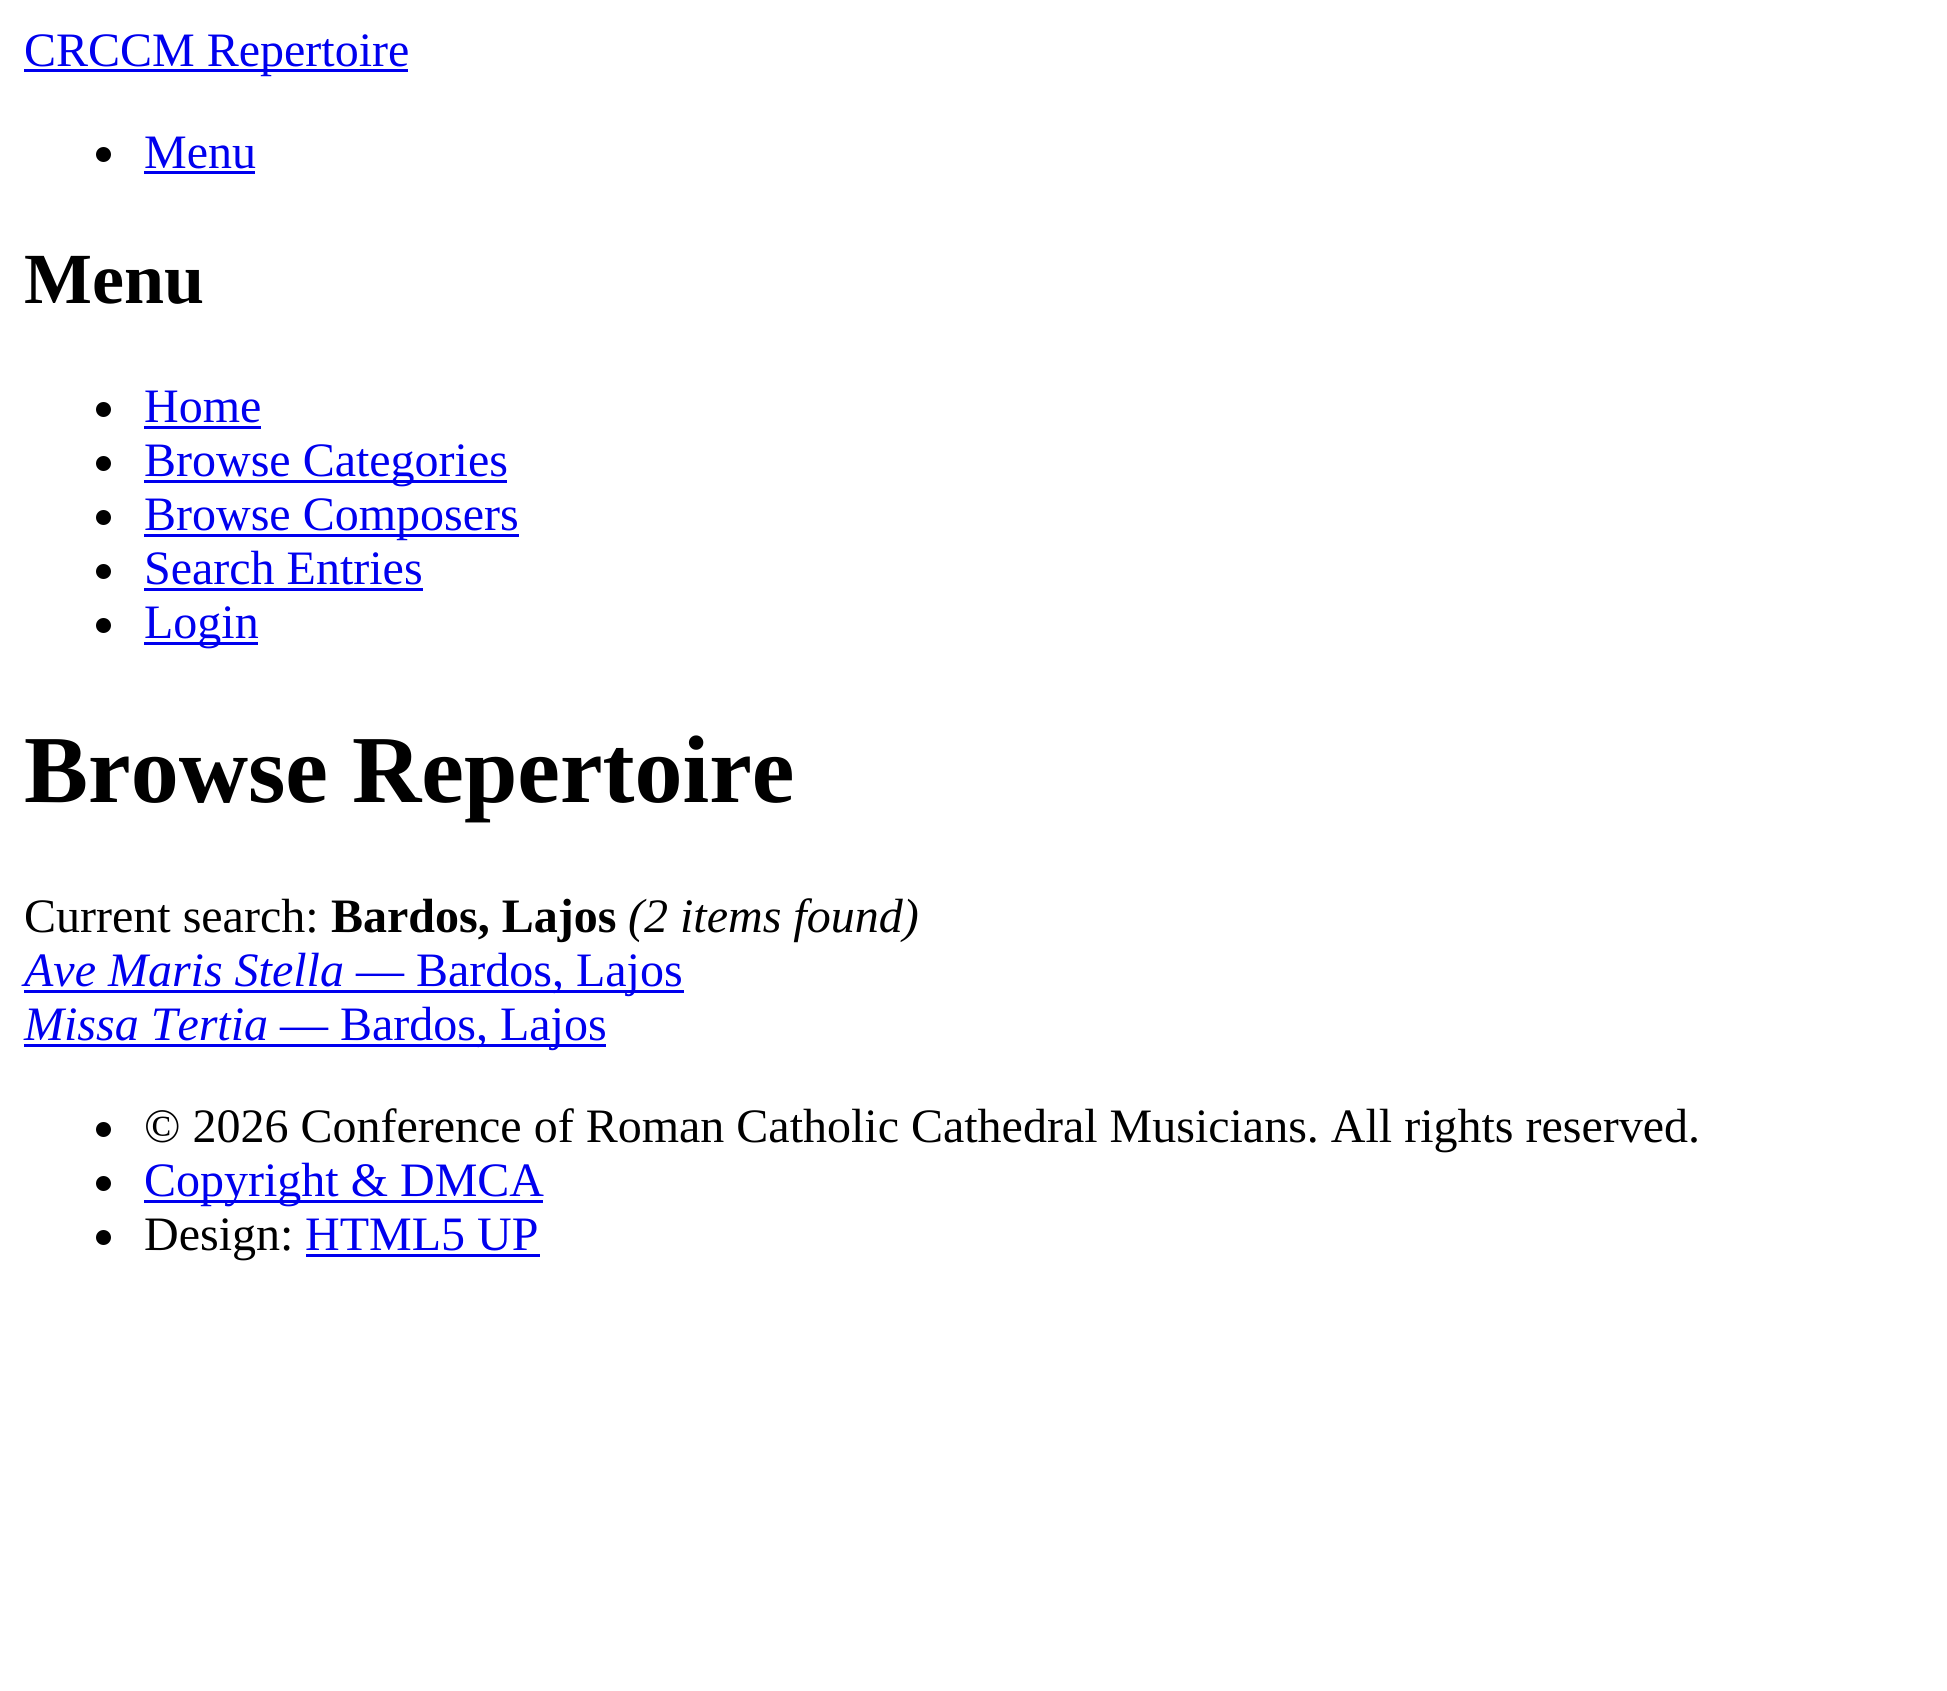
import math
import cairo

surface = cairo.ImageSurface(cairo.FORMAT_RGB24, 1947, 1691)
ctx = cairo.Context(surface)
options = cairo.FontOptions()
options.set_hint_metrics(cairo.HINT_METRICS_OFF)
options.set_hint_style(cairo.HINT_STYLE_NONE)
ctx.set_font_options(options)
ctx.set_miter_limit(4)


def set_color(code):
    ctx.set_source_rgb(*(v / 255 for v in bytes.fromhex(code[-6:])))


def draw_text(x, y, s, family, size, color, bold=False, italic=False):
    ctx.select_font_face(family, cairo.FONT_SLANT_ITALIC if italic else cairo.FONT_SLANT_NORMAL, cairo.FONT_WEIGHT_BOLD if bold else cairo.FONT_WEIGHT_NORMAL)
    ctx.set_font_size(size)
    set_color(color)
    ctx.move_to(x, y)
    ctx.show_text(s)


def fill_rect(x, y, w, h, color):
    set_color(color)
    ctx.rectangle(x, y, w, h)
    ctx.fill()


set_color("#ffffff")
ctx.paint()
fill_rect(24, 69, 384, 3, "#0000ee")
draw_text(24, 66, "CRCCM Repertoire", "Liberation Serif", 48, "#0000ee")
set_color("#000000")
ctx.new_path()
ctx.arc(103.5, 154.5, 7.5, 0, 2 * math.pi)
ctx.fill()
draw_text(144, 168, "Menu", "Liberation Serif", 48, "#0000ee")
fill_rect(144, 171, 111, 3, "#0000ee")
draw_text(24, 303, "Menu", "Liberation Serif", 72, "#000000", bold=True)
ctx.new_path()
ctx.arc(103.5, 409.5, 7.5, 0, 2 * math.pi)
ctx.fill()
draw_text(144, 422, "Home", "Liberation Serif", 48, "#0000ee")
fill_rect(144, 426, 117, 3, "#0000ee")
set_color("#000000")
ctx.new_path()
ctx.arc(103.5, 463.5, 7.5, 0, 2 * math.pi)
ctx.fill()
fill_rect(144, 480, 363, 3, "#0000ee")
draw_text(144, 476, "Browse Categories", "Liberation Serif", 48, "#0000ee")
set_color("#000000")
ctx.new_path()
ctx.arc(103.5, 517.5, 7.5, 0, 2 * math.pi)
ctx.fill()
fill_rect(144, 534, 375, 3, "#0000ee")
draw_text(144, 530, "Browse Composers", "Liberation Serif", 48, "#0000ee")
set_color("#000000")
ctx.new_path()
ctx.arc(103.5, 571.5, 7.5, 0, 2 * math.pi)
ctx.fill()
draw_text(144, 584, "Search Entries", "Liberation Serif", 48, "#0000ee")
fill_rect(144, 588, 279, 3, "#0000ee")
set_color("#000000")
ctx.new_path()
ctx.arc(103.5, 625.5, 7.5, 0, 2 * math.pi)
ctx.fill()
fill_rect(144, 642, 114, 3, "#0000ee")
draw_text(144, 638, "Login", "Liberation Serif", 48, "#0000ee")
draw_text(24, 802, "Browse Repertoire", "Liberation Serif", 96, "#000000", bold=True)
draw_text(24, 932, "Current search:", "Liberation Serif", 48, "#000000")
draw_text(331, 932, "Bardos, Lajos", "Liberation Serif", 48, "#000000", bold=True)
draw_text(628, 932, "(2 items found)", "Liberation Serif", 48, "#000000", italic=True)
draw_text(24, 986, "Ave Maris Stella", "Liberation Serif", 48, "#0000ee", italic=True)
fill_rect(24, 990, 660, 3, "#0000ee")
draw_text(356, 986, "— Bardos, Lajos", "Liberation Serif", 48, "#0000ee")
draw_text(24, 1040, "Missa Tertia", "Liberation Serif", 48, "#0000ee", italic=True)
fill_rect(24, 1044, 582, 3, "#0000ee")
draw_text(280, 1040, "— Bardos, Lajos", "Liberation Serif", 48, "#0000ee")
set_color("#000000")
ctx.new_path()
ctx.arc(103.5, 1129.5, 7.5, 0, 2 * math.pi)
ctx.fill()
draw_text(144, 1142, "© 2026 Conference of Roman Catholic Cathedral Musicians. All rights reserved.", "Liberation Serif", 48, "#000000")
ctx.new_path()
ctx.arc(103.5, 1183.5, 7.5, 0, 2 * math.pi)
ctx.fill()
fill_rect(144, 1200, 399, 3, "#0000ee")
draw_text(144, 1196, "Copyright & DMCA", "Liberation Serif", 48, "#0000ee")
set_color("#000000")
ctx.new_path()
ctx.arc(103.5, 1237.5, 7.5, 0, 2 * math.pi)
ctx.fill()
draw_text(144, 1250, "Design:", "Liberation Serif", 48, "#000000")
draw_text(305, 1250, "HTML5 UP", "Liberation Serif", 48, "#0000ee")
fill_rect(306, 1254, 234, 3, "#0000ee")
surface.write_to_png("output.png")
